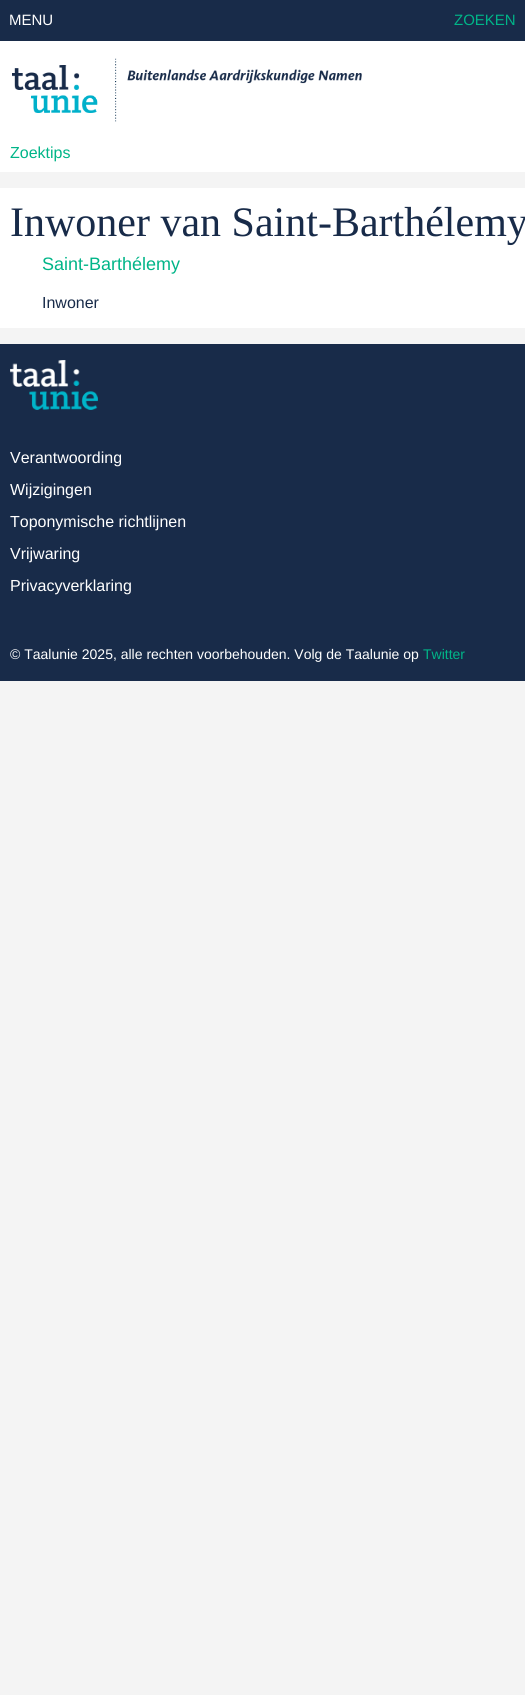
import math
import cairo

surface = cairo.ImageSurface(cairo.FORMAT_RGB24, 525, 1695)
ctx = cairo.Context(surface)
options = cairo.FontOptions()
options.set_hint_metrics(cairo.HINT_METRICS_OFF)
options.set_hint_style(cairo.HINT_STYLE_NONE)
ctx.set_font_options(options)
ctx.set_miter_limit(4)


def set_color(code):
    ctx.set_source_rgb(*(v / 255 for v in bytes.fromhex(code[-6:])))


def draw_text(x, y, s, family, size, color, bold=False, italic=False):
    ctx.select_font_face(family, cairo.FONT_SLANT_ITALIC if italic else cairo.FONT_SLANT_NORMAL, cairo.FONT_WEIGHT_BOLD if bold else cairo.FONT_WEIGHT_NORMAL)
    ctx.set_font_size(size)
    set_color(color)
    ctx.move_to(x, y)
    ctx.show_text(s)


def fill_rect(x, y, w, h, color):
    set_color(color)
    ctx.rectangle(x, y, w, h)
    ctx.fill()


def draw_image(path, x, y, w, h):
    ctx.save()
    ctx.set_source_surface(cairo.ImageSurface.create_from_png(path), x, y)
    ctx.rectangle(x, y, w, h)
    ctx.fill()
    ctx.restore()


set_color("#f4f4f4")
ctx.paint()
fill_rect(0, 0, 525, 41, "#182b49")
draw_text(9, 25, "MENU", "Liberation Sans", 15, "#ffffff")
draw_text(454, 25, "ZOEKEN", "Liberation Sans", 15, "#00b588")
fill_rect(0, 41, 525, 131, "#ffffff")
draw_image("assets/img1.png", 12, 58, 350, 64)
draw_text(10, 158, "Zoektips", "Liberation Sans", 16, "#00b588")
fill_rect(0, 188, 525, 140, "#ffffff")
draw_text(10, 236, "Inwoner van Saint-Barthélemy", "Liberation Serif", 42, "#182b49")
draw_text(42, 270, "Saint-Barthélemy", "Liberation Sans", 18, "#00b588")
draw_text(42, 308, "Inwoner", "Liberation Sans", 16, "#182b49")
fill_rect(0, 344, 525, 337, "#182b49")
draw_image("assets/img2.png", 10, 360, 88, 50)
draw_text(10, 463, "Verantwoording", "Liberation Sans", 16, "#ffffff")
draw_text(10, 495, "Wijzigingen", "Liberation Sans", 16, "#ffffff")
draw_text(10, 527, "Toponymische richtlijnen", "Liberation Sans", 16, "#ffffff")
draw_text(10, 559, "Vrijwaring", "Liberation Sans", 16, "#ffffff")
draw_text(10, 591, "Privacyverklaring", "Liberation Sans", 16, "#ffffff")
draw_text(10, 659, "© Taalunie 2025, alle rechten voorbehouden. Volg de Taalunie op", "Liberation Sans", 14, "#ffffff")
draw_text(423, 659, "Twitter", "Liberation Sans", 14, "#00b588")
surface.write_to_png("output.png")
